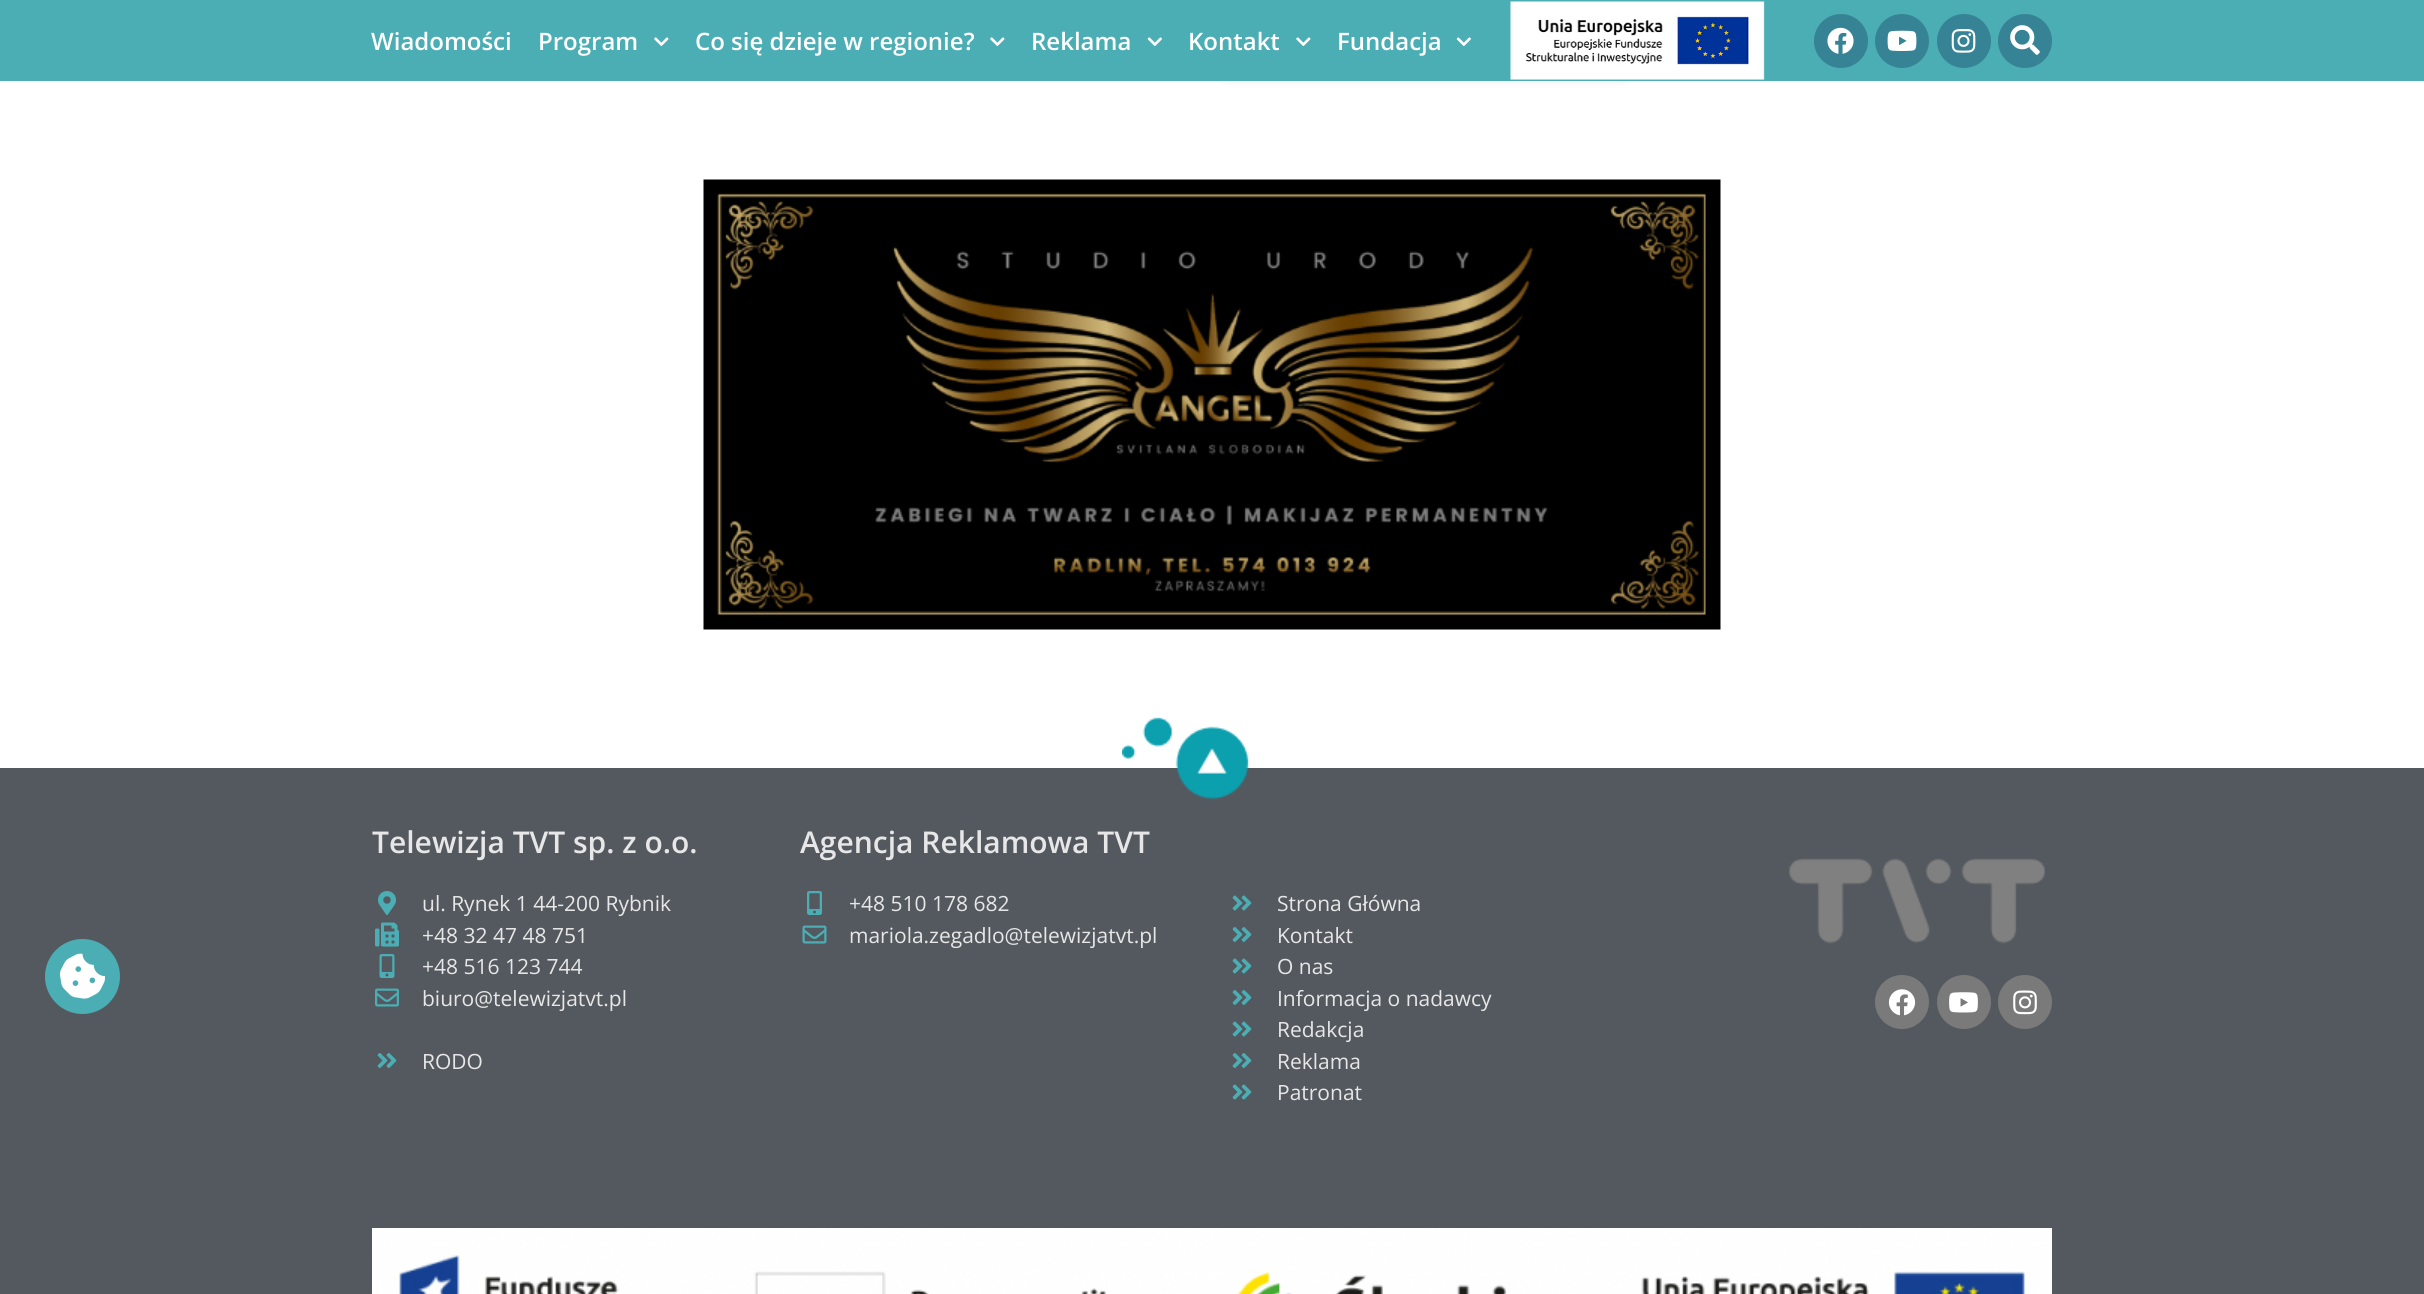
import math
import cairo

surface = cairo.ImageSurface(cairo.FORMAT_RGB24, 2424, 1294)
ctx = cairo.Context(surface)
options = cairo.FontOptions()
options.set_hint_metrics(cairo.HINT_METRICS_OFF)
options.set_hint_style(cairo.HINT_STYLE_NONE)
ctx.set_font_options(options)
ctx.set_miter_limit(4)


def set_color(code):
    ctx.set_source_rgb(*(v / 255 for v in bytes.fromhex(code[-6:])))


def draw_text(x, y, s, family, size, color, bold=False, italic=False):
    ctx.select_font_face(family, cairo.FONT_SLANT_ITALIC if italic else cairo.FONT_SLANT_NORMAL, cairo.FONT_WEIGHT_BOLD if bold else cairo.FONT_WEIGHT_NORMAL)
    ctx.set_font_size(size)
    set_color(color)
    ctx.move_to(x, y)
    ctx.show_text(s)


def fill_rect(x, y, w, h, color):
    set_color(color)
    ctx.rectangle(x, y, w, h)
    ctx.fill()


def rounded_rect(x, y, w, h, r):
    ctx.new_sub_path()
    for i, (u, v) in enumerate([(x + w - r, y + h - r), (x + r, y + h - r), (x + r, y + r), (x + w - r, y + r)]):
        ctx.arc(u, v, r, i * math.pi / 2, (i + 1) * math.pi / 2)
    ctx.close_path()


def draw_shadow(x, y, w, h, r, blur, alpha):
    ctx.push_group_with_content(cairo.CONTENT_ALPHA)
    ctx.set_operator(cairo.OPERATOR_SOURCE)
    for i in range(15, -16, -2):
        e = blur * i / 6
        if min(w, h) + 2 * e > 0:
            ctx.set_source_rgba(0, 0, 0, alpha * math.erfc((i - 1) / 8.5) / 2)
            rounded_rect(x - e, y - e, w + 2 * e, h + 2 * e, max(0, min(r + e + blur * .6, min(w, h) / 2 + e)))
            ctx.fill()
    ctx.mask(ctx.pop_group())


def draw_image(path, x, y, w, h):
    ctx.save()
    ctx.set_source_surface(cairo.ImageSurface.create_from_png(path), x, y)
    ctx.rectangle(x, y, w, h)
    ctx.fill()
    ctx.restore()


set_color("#ffffff")
ctx.paint()
set_color("#000000")
draw_shadow(1227, -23, 398, 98, 0, 7.5, 0.15)
draw_image("assets/img1.png", 703, 179, 1018, 451)
fill_rect(0, 0, 2424, 81, "#4aaeb4")
draw_text(371, 50, "Wiadomości", "Open Sans SemiBold", 24, "#ffffff")
draw_text(538, 50, "Program", "Open Sans SemiBold", 24, "#ffffff")
draw_image("assets/img2.png", 654, 37, 15, 9)
draw_text(695, 50, "Co się dzieje w regionie?", "Open Sans SemiBold", 24, "#ffffff")
draw_image("assets/img2.png", 990, 37, 15, 9)
draw_text(1031, 50, "Reklama", "Open Sans SemiBold", 24, "#ffffff")
draw_image("assets/img3.png", 1147, 37, 15, 9)
draw_text(1188, 50, "Kontakt", "Open Sans SemiBold", 24, "#ffffff")
draw_image("assets/img2.png", 1296, 37, 15, 9)
draw_text(1337, 50, "Fundacja", "Open Sans SemiBold", 24, "#ffffff")
draw_image("assets/img3.png", 1456, 37, 15, 9)
fill_rect(0, 768, 2424, 526, "#54595f")
set_color("#4aaeb4")
ctx.arc(82.5, 976.5, 37.5, 0, 2 * math.pi)
ctx.fill()
draw_image("assets/img4.png", 60, 953, 45, 46)
draw_image("assets/img5.png", 1510, 1, 255, 79)
set_color("#358395")
ctx.arc(1841, 41, 27, 0, 2 * math.pi)
ctx.fill()
draw_image("assets/img6.png", 1827, 27, 27, 27)
ctx.arc(1902, 41, 27, 0, 2 * math.pi)
ctx.fill()
draw_image("assets/img7.png", 1887, 30, 30, 21)
ctx.arc(1964, 41, 27, 0, 2 * math.pi)
ctx.fill()
draw_image("assets/img8.png", 1951, 29, 25, 24)
ctx.arc(2025, 41, 27, 0, 2 * math.pi)
ctx.fill()
draw_image("assets/img9.png", 2010, 25, 30, 30)
draw_image("assets/img10.png", 1122, 717, 127, 83)
draw_text(372, 853, "Telewizja TVT sp. z o.o.", "Open Sans SemiBold", 30, "#e7e7e7")
draw_image("assets/img11.png", 378, 891, 18, 24)
draw_text(422, 911, "ul. Rynek 1 44-200 Rybnik", "Open Sans", 21, "#e7e7e7")
draw_image("assets/img12.png", 375, 922, 24, 25)
draw_text(422, 943, "+48 32 47 48 751", "Open Sans", 21, "#e7e7e7")
draw_image("assets/img13.png", 379, 954, 16, 24)
draw_text(422, 974, "+48 516 123 744", "Open Sans", 21, "#e7e7e7")
draw_image("assets/img14.png", 375, 988, 24, 19)
draw_text(422, 1006, "biuro@telewizjatvt.pl", "Open Sans", 21, "#e7e7e7")
draw_image("assets/img15.png", 377, 1053, 20, 15)
draw_text(422, 1069, "RODO", "Open Sans", 21, "#e7e7e7")
draw_text(800, 853, "Agencja Reklamowa TVT", "Open Sans SemiBold", 30, "#e7e7e7")
draw_image("assets/img16.png", 807, 891, 15, 24)
draw_text(849, 911, "+48 510 178 682", "Open Sans", 21, "#e7e7e7")
draw_image("assets/img17.png", 802, 925, 25, 19)
draw_text(849, 943, "mariola.zegadlo@telewizjatvt.pl", "Open Sans", 21, "#e7e7e7")
draw_image("assets/img18.png", 1232, 895, 20, 16)
draw_text(1277, 911, "Strona Główna", "Open Sans", 21, "#e7e7e7")
draw_image("assets/img15.png", 1232, 927, 20, 15)
draw_text(1277, 943, "Kontakt", "Open Sans", 21, "#e7e7e7")
draw_image("assets/img18.png", 1232, 958, 20, 16)
draw_text(1277, 974, "O nas", "Open Sans", 21, "#e7e7e7")
draw_image("assets/img15.png", 1232, 990, 20, 15)
draw_text(1277, 1006, "Informacja o nadawcy", "Open Sans", 21, "#e7e7e7")
draw_image("assets/img18.png", 1232, 1021, 20, 16)
draw_text(1277, 1037, "Redakcja", "Open Sans", 21, "#e7e7e7")
draw_image("assets/img15.png", 1232, 1053, 20, 15)
draw_text(1277, 1069, "Reklama", "Open Sans", 21, "#e7e7e7")
draw_image("assets/img18.png", 1232, 1084, 20, 16)
draw_text(1277, 1100, "Patronat", "Open Sans", 21, "#e7e7e7")
draw_image("assets/img19.png", 1788, 858, 258, 86)
set_color("#7a7a7a")
ctx.arc(1902, 1002, 27, 0, 2 * math.pi)
ctx.fill()
draw_image("assets/img20.png", 1888, 989, 28, 27)
ctx.arc(1964, 1002, 27, 0, 2 * math.pi)
ctx.fill()
draw_image("assets/img21.png", 1949, 992, 29, 21)
ctx.arc(2025, 1002, 27, 0, 2 * math.pi)
ctx.fill()
draw_image("assets/img22.png", 2013, 990, 24, 25)
draw_image("assets/img23.png", 372, 1228, 1680, 66)
surface.write_to_png("output.png")
